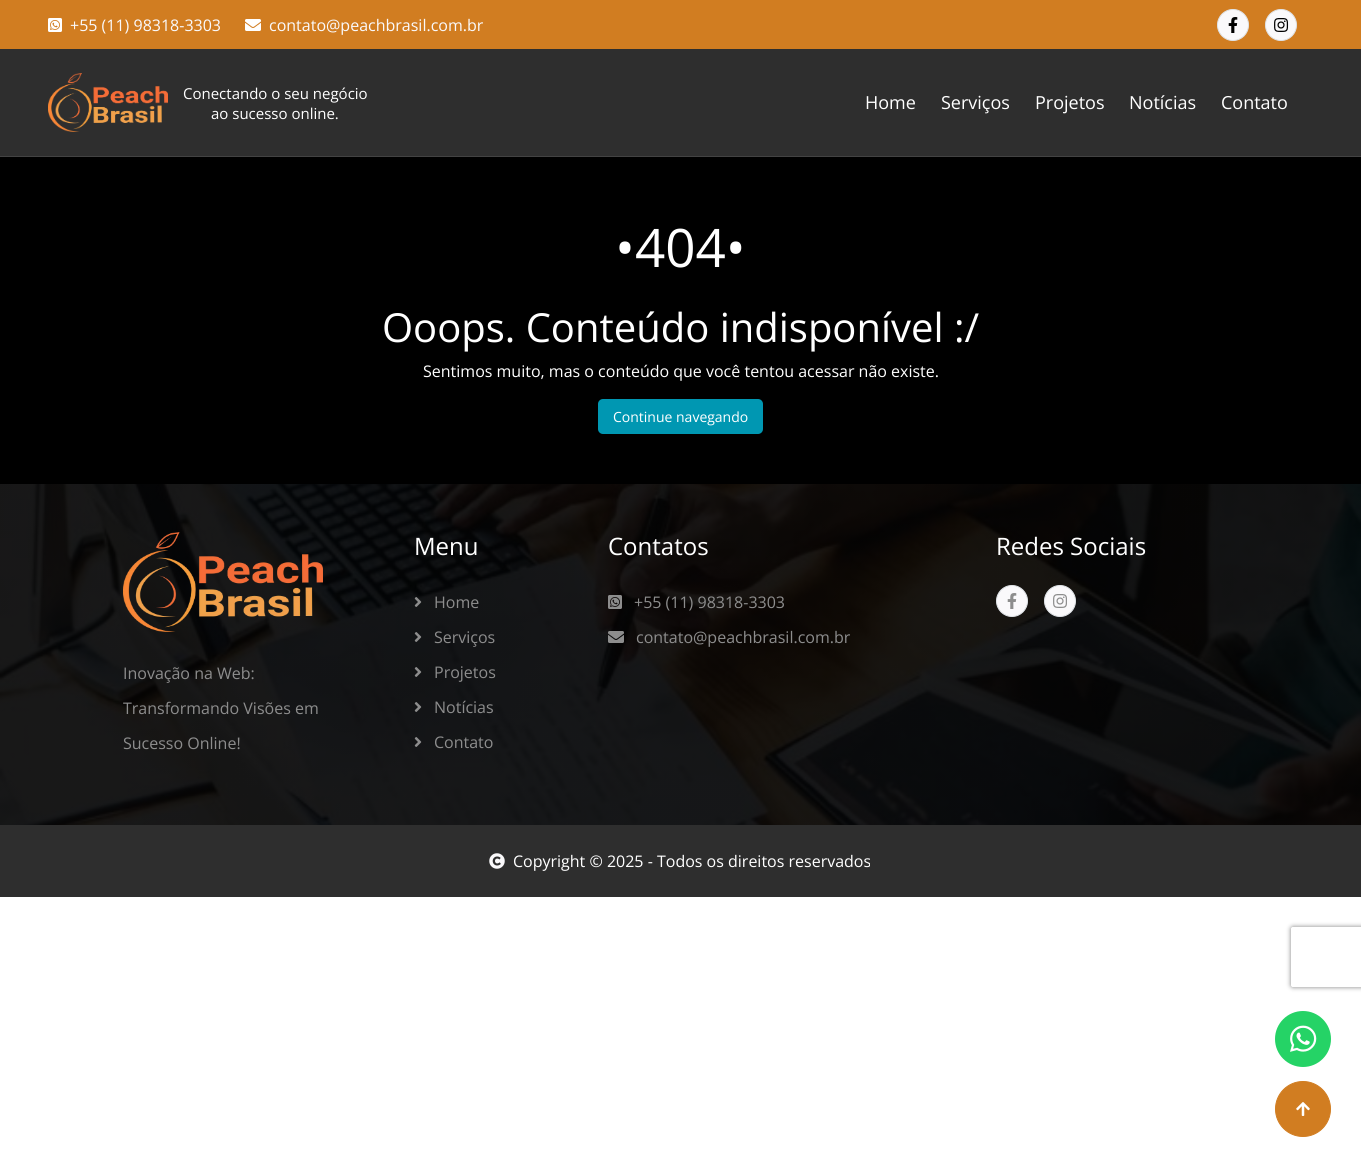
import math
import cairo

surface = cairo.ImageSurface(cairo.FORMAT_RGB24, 1361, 1167)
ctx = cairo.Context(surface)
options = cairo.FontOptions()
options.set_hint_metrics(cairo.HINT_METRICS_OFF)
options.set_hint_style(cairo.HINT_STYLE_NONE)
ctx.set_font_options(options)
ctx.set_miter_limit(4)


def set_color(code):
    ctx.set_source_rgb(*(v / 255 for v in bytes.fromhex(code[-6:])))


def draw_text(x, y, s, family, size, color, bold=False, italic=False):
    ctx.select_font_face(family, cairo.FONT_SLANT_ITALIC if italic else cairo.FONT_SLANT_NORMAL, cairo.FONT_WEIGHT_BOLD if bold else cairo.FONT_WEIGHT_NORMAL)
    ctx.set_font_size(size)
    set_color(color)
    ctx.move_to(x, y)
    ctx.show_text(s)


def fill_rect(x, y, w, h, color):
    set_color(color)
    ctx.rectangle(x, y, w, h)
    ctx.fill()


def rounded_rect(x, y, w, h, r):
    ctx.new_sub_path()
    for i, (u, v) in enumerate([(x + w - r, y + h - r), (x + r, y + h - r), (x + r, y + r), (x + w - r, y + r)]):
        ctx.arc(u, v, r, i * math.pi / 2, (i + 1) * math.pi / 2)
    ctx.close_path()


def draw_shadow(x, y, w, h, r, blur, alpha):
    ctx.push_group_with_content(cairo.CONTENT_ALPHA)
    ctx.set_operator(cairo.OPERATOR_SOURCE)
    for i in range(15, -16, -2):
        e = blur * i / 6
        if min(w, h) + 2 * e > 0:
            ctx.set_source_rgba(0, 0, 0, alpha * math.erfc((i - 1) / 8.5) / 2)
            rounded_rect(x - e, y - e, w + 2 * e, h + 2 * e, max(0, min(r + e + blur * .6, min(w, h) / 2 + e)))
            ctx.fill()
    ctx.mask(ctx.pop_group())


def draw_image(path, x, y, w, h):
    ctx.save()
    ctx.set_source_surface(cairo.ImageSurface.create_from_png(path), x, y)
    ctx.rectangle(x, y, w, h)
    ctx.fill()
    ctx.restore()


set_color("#ffffff")
ctx.paint()
fill_rect(0, 0, 1361, 49, "#d17d21")
draw_image("assets/img1.png", 48, 18, 14, 14)
draw_text(70, 31, "+55 (11) 98318-3303", "Open Sans", 16, "#faf9fb")
draw_image("assets/img2.png", 245, 19, 16, 12)
draw_text(269, 31, "contato@peachbrasil.com.br", "Open Sans", 16, "#faf9fb")
ctx.new_path()
ctx.arc(1233, 25, 15.5, 0, 2 * math.pi)
ctx.fill_preserve()
set_color("#dee2e6")
ctx.set_line_width(1)
ctx.stroke()
draw_image("assets/img3.png", 1228, 17, 10, 16)
set_color("#faf9fb")
ctx.arc(1281, 25, 15.5, 0, 2 * math.pi)
ctx.fill_preserve()
set_color("#dee2e6")
ctx.stroke()
draw_image("assets/img4.png", 1274, 18, 15, 14)
fill_rect(0, 49, 1361, 107, "#2e2e2e")
fill_rect(0, 156, 1361, 1, "#434343")
draw_image("assets/img5.png", 48, 73, 120, 59)
draw_text(183, 99, "Conectando o seu negócio", "Open Sans", 15, "#ffffff")
draw_text(211, 119, "ao sucesso online.", "Open Sans", 15, "#ffffff")
draw_text(865, 109, "Home", "Open Sans", 18, "#ffffff")
draw_text(941, 109, "Serviços", "Open Sans", 18, "#ffffff")
draw_text(1035, 109, "Projetos", "Open Sans", 18, "#ffffff")
draw_text(1129, 109, "Notícias", "Open Sans", 18, "#ffffff")
draw_text(1221, 109, "Contato", "Open Sans", 18, "#ffffff")
fill_rect(0, 157, 1361, 327, "#000000")
draw_text(615, 267, "•404•", "Open Sans", 53, "#ffffff")
draw_text(382, 342, "Ooops. Conteúdo indisponível :/", "Open Sans", 40, "#ffffff")
draw_text(423, 377, "Sentimos muito, mas o conteúdo que você tentou acessar não existe.", "Open Sans", 16, "#ffffff")
set_color("#0097b2")
rounded_rect(598, 399, 165, 35, 5)
ctx.fill()
draw_text(613, 422, "Continue navegando", "Open Sans", 14, "#ffffff")
draw_image("assets/img6.png", 0, 484, 1361, 341)
draw_text(414, 555, "Menu", "Open Sans", 24, "#ffffff")
draw_image("assets/img7.png", 414, 597, 8, 10)
draw_text(434, 608, "Home", "Open Sans", 16, "#8d8d8d")
draw_image("assets/img8.png", 414, 632, 8, 10)
draw_text(434, 643, "Serviços", "Open Sans", 16, "#8d8d8d")
draw_image("assets/img9.png", 414, 667, 8, 10)
draw_text(434, 678, "Projetos", "Open Sans", 16, "#8d8d8d")
draw_image("assets/img10.png", 414, 702, 8, 10)
draw_text(434, 713, "Notícias", "Open Sans", 16, "#8d8d8d")
draw_image("assets/img11.png", 414, 737, 8, 10)
draw_text(434, 748, "Contato", "Open Sans", 16, "#8d8d8d")
draw_text(608, 555, "Contatos", "Open Sans", 24, "#ffffff")
draw_image("assets/img12.png", 608, 595, 14, 14)
draw_text(634, 608, "+55 (11) 98318-3303", "Open Sans", 16, "#8d8d8d")
draw_image("assets/img13.png", 608, 631, 16, 12)
draw_text(636, 643, "contato@peachbrasil.com.br", "Open Sans", 16, "#8d8d8d")
draw_text(996, 555, "Redes Sociais", "Open Sans", 24, "#ffffff")
set_color("#faf9fb")
ctx.new_path()
ctx.arc(1012, 601, 15.5, 0, 2 * math.pi)
ctx.fill_preserve()
set_color("#dee2e6")
ctx.stroke()
draw_image("assets/img14.png", 1007, 593, 10, 16)
set_color("#faf9fb")
ctx.arc(1060, 601, 15.5, 0, 2 * math.pi)
ctx.fill_preserve()
set_color("#dee2e6")
ctx.stroke()
draw_image("assets/img15.png", 1053, 594, 14, 14)
draw_image("assets/img16.png", 123, 532, 200, 100)
draw_text(123, 679, "Inovação na Web:", "Open Sans", 16, "#8d8d8d")
draw_text(123, 714, "Transformando Visões em", "Open Sans", 16, "#8d8d8d")
draw_text(123, 749, "Sucesso Online!", "Open Sans", 16, "#8d8d8d")
fill_rect(0, 825, 1361, 72, "#2e2e2e")
draw_image("assets/img17.png", 489, 853, 16, 16)
draw_text(513, 867, "Copyright © 2025 - Todos os direitos reservados", "Open Sans", 16, "#ffffff")
set_color("#25d366")
ctx.new_path()
ctx.arc(1303, 1039, 28, 0, 2 * math.pi)
ctx.fill()
draw_image("assets/img18.png", 1290, 1025, 27, 27)
set_color("#d17d21")
ctx.arc(1303, 1109, 27.5, 0, 2 * math.pi)
ctx.fill_preserve()
ctx.stroke()
draw_image("assets/img19.png", 1296, 1102, 14, 14)
ctx.save()
ctx.set_fill_rule(cairo.FILL_RULE_EVEN_ODD)
ctx.new_path()
ctx.move_to(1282, 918)
ctx.line_to(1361, 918)
ctx.line_to(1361, 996)
ctx.line_to(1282, 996)
ctx.close_path()
ctx.move_to(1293, 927)
ctx.line_to(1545, 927)
ctx.curve_to(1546, 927, 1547, 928, 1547, 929)
ctx.line_to(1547, 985)
ctx.curve_to(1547, 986, 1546, 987, 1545, 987)
ctx.line_to(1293, 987)
ctx.curve_to(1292, 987, 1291, 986, 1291, 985)
ctx.line_to(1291, 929)
ctx.curve_to(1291, 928, 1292, 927, 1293, 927)
ctx.close_path()
ctx.clip()
set_color("#808080")
draw_shadow(1291, 927, 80, 60, 2, 2.5, 1)
ctx.restore()
surface.write_to_png("output.png")
